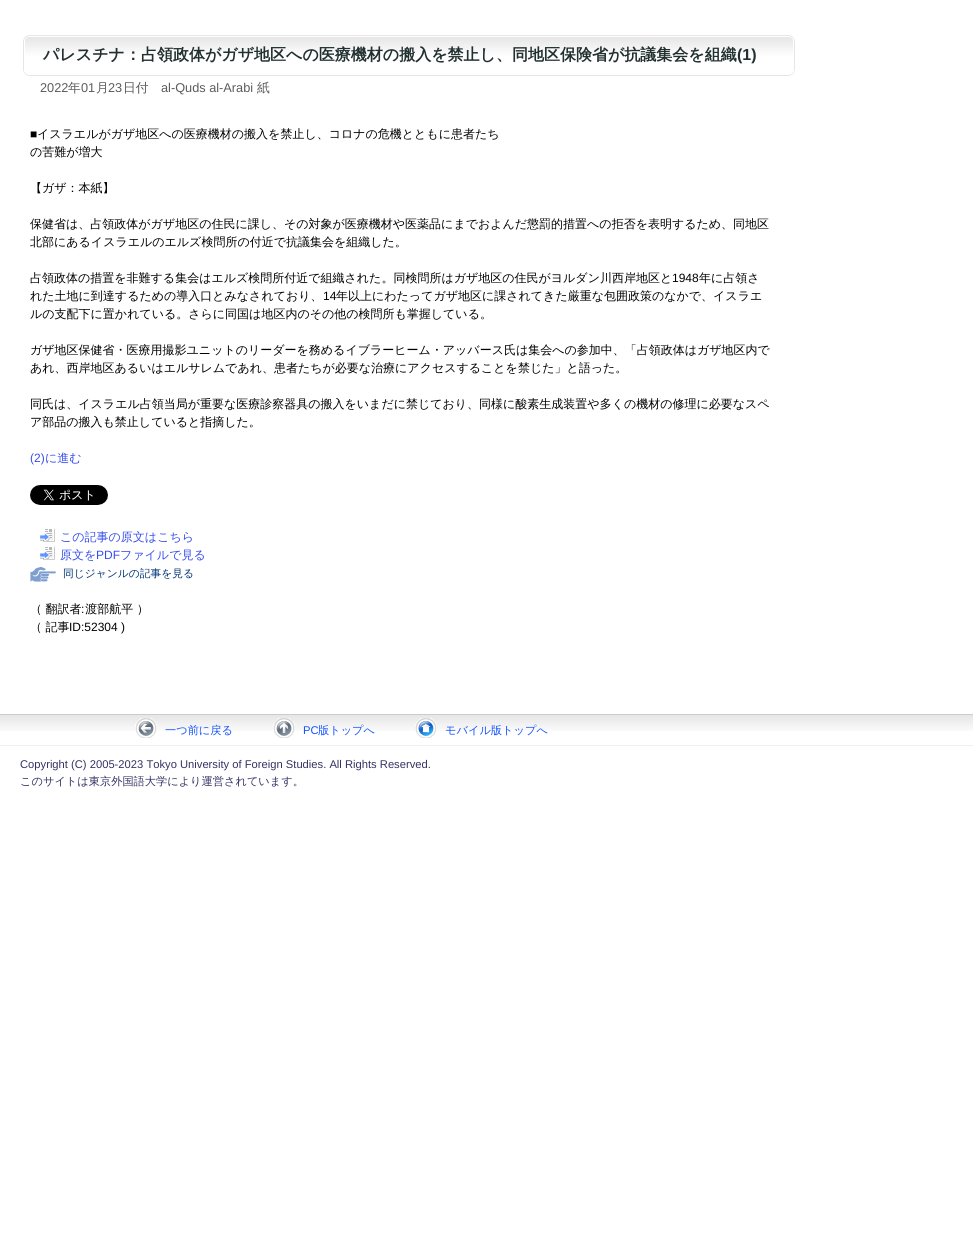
import math
import cairo

surface = cairo.ImageSurface(cairo.FORMAT_RGB24, 973, 1240)
ctx = cairo.Context(surface)
options = cairo.FontOptions()
options.set_hint_metrics(cairo.HINT_METRICS_OFF)
options.set_hint_style(cairo.HINT_STYLE_NONE)
ctx.set_font_options(options)
ctx.set_miter_limit(4)


def set_color(code):
    ctx.set_source_rgb(*(v / 255 for v in bytes.fromhex(code[-6:])))


def draw_text(x, y, s, family, size, color, bold=False, italic=False):
    ctx.select_font_face(family, cairo.FONT_SLANT_ITALIC if italic else cairo.FONT_SLANT_NORMAL, cairo.FONT_WEIGHT_BOLD if bold else cairo.FONT_WEIGHT_NORMAL)
    ctx.set_font_size(size)
    set_color(color)
    ctx.move_to(x, y)
    ctx.show_text(s)


def fill_rect(x, y, w, h, color):
    set_color(color)
    ctx.rectangle(x, y, w, h)
    ctx.fill()


def rounded_rect(x, y, w, h, r):
    ctx.new_sub_path()
    for i, (u, v) in enumerate([(x + w - r, y + h - r), (x + r, y + h - r), (x + r, y + r), (x + w - r, y + r)]):
        ctx.arc(u, v, r, i * math.pi / 2, (i + 1) * math.pi / 2)
    ctx.close_path()


def draw_shadow(x, y, w, h, r, blur, alpha):
    ctx.push_group_with_content(cairo.CONTENT_ALPHA)
    ctx.set_operator(cairo.OPERATOR_SOURCE)
    for i in range(15, -16, -2):
        e = blur * i / 6
        if min(w, h) + 2 * e > 0:
            ctx.set_source_rgba(0, 0, 0, alpha * math.erfc((i - 1) / 8.5) / 2)
            rounded_rect(x - e, y - e, w + 2 * e, h + 2 * e, max(0, min(r + e + blur * .6, min(w, h) / 2 + e)))
            ctx.fill()
    ctx.mask(ctx.pop_group())


def draw_image(path, x, y, w, h):
    ctx.save()
    ctx.set_source_surface(cairo.ImageSurface.create_from_png(path), x, y)
    ctx.rectangle(x, y, w, h)
    ctx.fill()
    ctx.restore()


set_color("#ffffff")
ctx.paint()
set_color("#999999")
draw_shadow(24, 36, 770, 39, 5, 0.5, 1)
draw_image("assets/img1.png", 24, 37, 770, 38)
rounded_rect(24.5, 36.5, 769, 38, 4.5)
set_color("#ffffff")
ctx.set_line_width(1)
ctx.stroke()
draw_text(43, 60, "パレスチナ：占領政体がガザ地区への医療機材の搬入を禁止し、同地区保険省が抗議集会を組織", "WenQuanYi Zen Hei", 16, "#223030", bold=True)
draw_text(737, 60, "(1)", "Liberation Sans", 16, "#223030", bold=True)
draw_text(40, 92, "2022", "Liberation Sans", 12.75, "#5b5b5b")
draw_text(68, 92, "年", "WenQuanYi Zen Hei Medium", 12.75, "#5b5b5b")
draw_text(81, 92, "01", "Liberation Sans", 12.75, "#5b5b5b")
draw_text(96, 92, "月", "WenQuanYi Zen Hei Medium", 12.75, "#5b5b5b")
draw_text(108, 92, "23", "Liberation Sans", 12.75, "#5b5b5b")
draw_text(123, 92, "日付", "WenQuanYi Zen Hei Medium", 12.75, "#5b5b5b")
draw_text(161, 92, "al-Quds al-Arabi", "Liberation Sans", 12.75, "#5b5b5b")
draw_text(257, 92, "紙", "WenQuanYi Zen Hei Medium", 12.75, "#5b5b5b")
draw_text(30, 138, "■", "Liberation Sans", 12, "#000000")
draw_text(37, 138, "イスラエルがガザ地区への医療機材の搬入を禁止し、コロナの危機とともに患者たち", "WenQuanYi Zen Hei Medium", 12, "#000000")
draw_text(30, 156, "の苦難が増大", "WenQuanYi Zen Hei Medium", 12, "#000000")
draw_text(30, 192, "【ガザ：本紙】", "WenQuanYi Zen Hei Medium", 12, "#000000")
draw_text(30, 228, "保健省は、占領政体がガザ地区の住民に課し、その対象が医療機材や医薬品にまでおよんだ懲罰的措置への拒否を表明するため、同地区", "WenQuanYi Zen Hei Medium", 12, "#000000")
draw_text(30, 246, "北部にあるイスラエルのエルズ検問所の付近で抗議集会を組織した。", "WenQuanYi Zen Hei Medium", 12, "#000000")
draw_text(30, 282, "占領政体の措置を非難する集会はエルズ検問所付近で組織された。同検問所はガザ地区の住民がヨルダン川西岸地区と", "WenQuanYi Zen Hei Medium", 12, "#000000")
draw_text(672, 282, "1948", "Liberation Sans", 12, "#000000")
draw_text(699, 282, "年に占領さ", "WenQuanYi Zen Hei Medium", 12, "#000000")
draw_text(30, 300, "れた土地に到達するための導入口とみなされており、", "WenQuanYi Zen Hei Medium", 12, "#000000")
draw_text(323, 300, "14", "Liberation Sans", 12, "#000000")
draw_text(336, 300, "年以上にわたってガザ地区に課されてきた厳重な包囲政策のなかで、イスラエ", "WenQuanYi Zen Hei Medium", 12, "#000000")
draw_text(30, 318, "ルの支配下に置かれている。さらに同国は地区内のその他の検問所も掌握している。", "WenQuanYi Zen Hei Medium", 12, "#000000")
draw_text(30, 354, "ガザ地区保健省・医療用撮影ユニットのリーダーを務めるイブラーヒーム・アッバース氏は集会への参加中、「占領政体はガザ地区内で", "WenQuanYi Zen Hei Medium", 12, "#000000")
draw_text(30, 372, "あれ、西岸地区あるいはエルサレムであれ、患者たちが必要な治療にアクセスすることを禁じた」と語った。", "WenQuanYi Zen Hei Medium", 12, "#000000")
draw_text(30, 408, "同氏は、イスラエル占領当局が重要な医療診察器具の搬入をいまだに禁じており、同様に酸素生成装置や多くの機材の修理に必要なスペ", "WenQuanYi Zen Hei Medium", 12, "#000000")
draw_text(30, 426, "ア部品の搬入も禁止していると指摘した。", "WenQuanYi Zen Hei Medium", 12, "#000000")
draw_text(30, 462, "(2)", "Liberation Sans", 12, "#374eec")
draw_text(45, 462, "に進む", "WenQuanYi Zen Hei Medium", 12, "#374eec")
draw_image("assets/img2.png", 30, 485, 78, 20)
draw_image("assets/img3.png", 40, 528, 15, 14)
draw_text(60, 541, "この記事の原文はこちら", "WenQuanYi Zen Hei Medium", 12, "#374eec")
draw_image("assets/img3.png", 40, 546, 15, 14)
draw_text(60, 559, "原文を", "WenQuanYi Zen Hei Medium", 12, "#374eec")
draw_text(96, 559, "PDF", "Liberation Sans", 12, "#374eec")
draw_text(120, 559, "ファイルで見る", "WenQuanYi Zen Hei Medium", 12, "#374eec")
draw_image("assets/img4.png", 30, 567, 26, 15)
draw_text(63, 577, "同じジャンルの記事を見る", "WenQuanYi Zen Hei Medium", 10.75, "#003276")
draw_text(30, 613, "（ 翻訳者 渡部航平 ）", "WenQuanYi Zen Hei Medium", 12, "#000000")
draw_text(81, 613, ":", "Liberation Sans", 12, "#000000")
draw_text(30, 631, "（ 記事", "WenQuanYi Zen Hei Medium", 12, "#000000")
draw_text(69, 631, "ID:52304 )", "Liberation Sans", 12, "#000000")
draw_image("assets/img5.png", 0, 715, 973, 16)
fill_rect(0, 714, 973, 1, "#cccccc")
fill_rect(0, 745, 973, 1, "#eeeeee")
draw_image("assets/img6.png", 135, 718, 22, 20)
draw_text(165, 734, "一つ前に戻る", "WenQuanYi Zen Hei Medium", 11.2, "#1353ff")
draw_image("assets/img7.png", 273, 718, 22, 20)
draw_text(303, 734, "PC", "Liberation Sans", 11.2, "#1353ff")
draw_text(318, 734, "版トップへ", "WenQuanYi Zen Hei Medium", 11.2, "#1353ff")
draw_image("assets/img8.png", 415, 718, 22, 20)
draw_text(445, 734, "モバイル版トップへ", "WenQuanYi Zen Hei Medium", 11.2, "#1353ff")
draw_text(20, 768, "Copyright (C) 2005-2023 Tokyo University of Foreign Studies. All Rights Reserved.", "Liberation Sans", 11.2, "#323264")
draw_text(20, 785, "このサイトは東京外国語大学により運営されています。", "WenQuanYi Zen Hei Medium", 11.2, "#323264")
surface.write_to_png("output.png")
